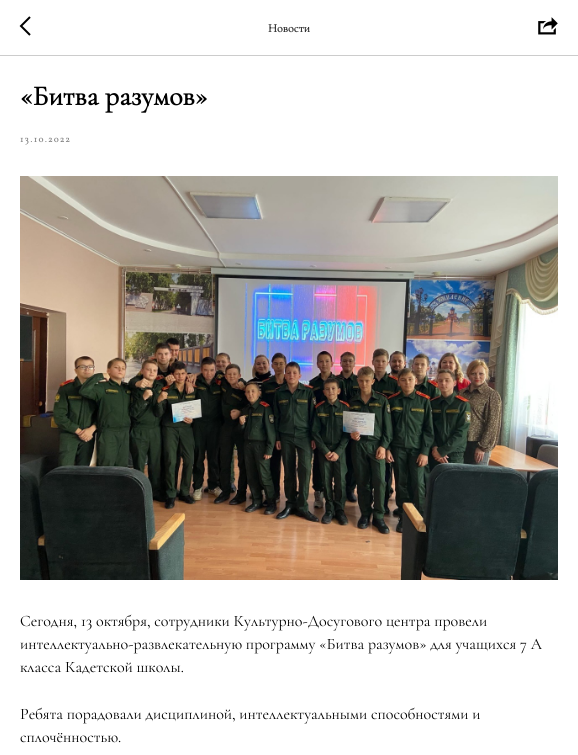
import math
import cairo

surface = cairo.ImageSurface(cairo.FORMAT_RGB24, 578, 755)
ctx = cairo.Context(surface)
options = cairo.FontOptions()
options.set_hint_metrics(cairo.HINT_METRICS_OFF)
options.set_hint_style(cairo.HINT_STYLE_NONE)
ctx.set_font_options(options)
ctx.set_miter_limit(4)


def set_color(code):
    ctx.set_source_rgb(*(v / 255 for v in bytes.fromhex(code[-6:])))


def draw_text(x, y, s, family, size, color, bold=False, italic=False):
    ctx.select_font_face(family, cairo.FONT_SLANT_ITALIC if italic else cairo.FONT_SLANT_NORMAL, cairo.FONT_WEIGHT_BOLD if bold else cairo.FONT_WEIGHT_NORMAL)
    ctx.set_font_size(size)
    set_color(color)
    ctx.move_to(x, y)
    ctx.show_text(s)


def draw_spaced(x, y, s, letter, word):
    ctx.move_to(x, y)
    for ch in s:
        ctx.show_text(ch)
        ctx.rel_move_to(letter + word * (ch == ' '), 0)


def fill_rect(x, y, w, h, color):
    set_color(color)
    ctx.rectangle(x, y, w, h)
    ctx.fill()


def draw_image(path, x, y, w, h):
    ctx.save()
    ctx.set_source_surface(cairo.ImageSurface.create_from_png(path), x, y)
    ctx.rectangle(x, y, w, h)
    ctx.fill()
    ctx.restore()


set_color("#ffffff")
ctx.paint()
fill_rect(0, 55, 578, 1, "#cccccc")
ctx.new_path()
ctx.move_to(30, 35)
ctx.line_to(21, 26)
ctx.line_to(30, 17)
set_color("#000000")
ctx.stroke()
draw_text(268, 32, "Новости", "Cormorant Garamond", 12, "#333333", bold=True)
draw_image("assets/img1.png", 538, 17, 20, 18)
draw_text(20, 105, "«Битва разумов»", "Cormorant Garamond", 28, "#000000", bold=True)
ctx.set_font_size(10)
set_color("#808080")
draw_spaced(20, 142, "13.10.2022", 1.5, 0)
draw_image("assets/img2.png", 20, 176, 538, 404)
draw_text(20, 626, "Сегодня, 13 октября, сотрудники Культурно-Досугового центра провели", "Cormorant Garamond", 16, "#000000")
draw_text(20, 649, "интеллектуально-развлекательную программу «Битва разумов» для учащихся 7 А", "Cormorant Garamond", 16, "#000000")
draw_text(20, 672, "класса Кадетской школы.", "Cormorant Garamond", 16, "#000000")
draw_text(20, 719, "Ребята порадовали дисциплиной, интеллектуальными способностями и", "Cormorant Garamond", 16, "#000000")
draw_text(20, 742, "сплочённостью.", "Cormorant Garamond", 16, "#000000")
surface.write_to_png("output.png")
